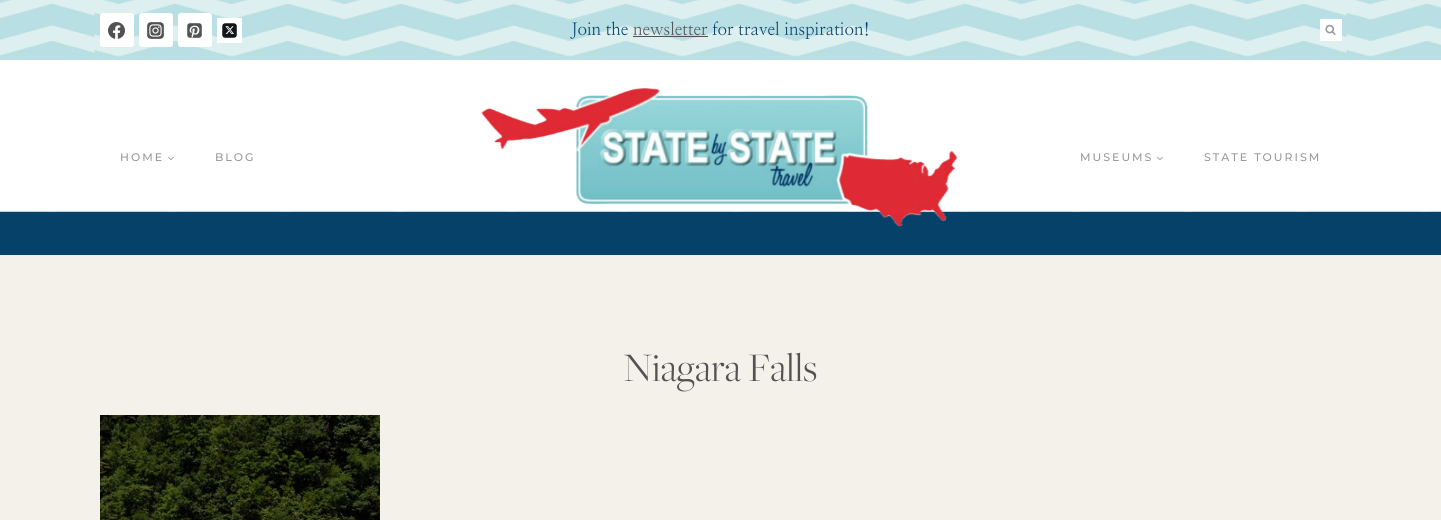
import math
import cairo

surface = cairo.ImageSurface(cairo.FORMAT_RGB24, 1441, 520)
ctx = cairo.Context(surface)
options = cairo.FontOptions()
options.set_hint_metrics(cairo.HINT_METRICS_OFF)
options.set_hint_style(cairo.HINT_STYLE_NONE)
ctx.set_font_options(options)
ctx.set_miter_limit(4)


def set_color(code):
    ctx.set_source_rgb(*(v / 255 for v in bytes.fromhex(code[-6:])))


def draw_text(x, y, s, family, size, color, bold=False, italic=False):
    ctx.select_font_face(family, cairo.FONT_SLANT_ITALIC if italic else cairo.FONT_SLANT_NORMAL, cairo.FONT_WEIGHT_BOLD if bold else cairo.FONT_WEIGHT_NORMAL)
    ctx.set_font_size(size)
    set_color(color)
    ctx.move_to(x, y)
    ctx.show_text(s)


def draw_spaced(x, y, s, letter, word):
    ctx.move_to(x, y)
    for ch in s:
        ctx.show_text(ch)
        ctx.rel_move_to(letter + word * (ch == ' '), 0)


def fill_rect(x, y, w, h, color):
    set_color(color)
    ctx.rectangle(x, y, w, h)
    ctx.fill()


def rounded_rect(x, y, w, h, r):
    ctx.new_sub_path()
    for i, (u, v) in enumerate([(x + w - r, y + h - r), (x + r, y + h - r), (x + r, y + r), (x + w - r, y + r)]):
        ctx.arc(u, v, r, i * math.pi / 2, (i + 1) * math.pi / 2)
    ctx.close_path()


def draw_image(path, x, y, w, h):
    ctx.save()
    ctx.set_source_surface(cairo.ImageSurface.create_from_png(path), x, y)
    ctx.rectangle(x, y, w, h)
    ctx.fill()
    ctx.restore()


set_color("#f4f1ea")
ctx.paint()
fill_rect(0, 60, 1441, 150, "#ffffff")
draw_image("assets/img1.png", 0, 0, 1441, 60)
rounded_rect(100, 13, 34, 34, 3)
ctx.fill()
draw_image("assets/img2.png", 108, 22, 17, 17)
rounded_rect(139, 13, 34, 34, 3)
ctx.fill()
draw_image("assets/img3.png", 147, 22, 17, 17)
rounded_rect(178, 13, 34, 34, 3)
ctx.fill()
draw_image("assets/img4.png", 187, 23, 15, 15)
draw_image("assets/img5.png", 217, 18, 25, 25)
draw_text(571, 35, "Join the", "NanumMyeongjo", 17, "#06416a")
draw_text(633, 35, "newsletter", "NanumMyeongjo", 17, "#525252")
fill_rect(633, 36, 75, 1, "#525252")
draw_text(712, 35, "for travel inspiration!", "NanumMyeongjo", 17, "#06416a")
fill_rect(1320, 19, 22, 22, "#ffffff")
draw_image("assets/img6.png", 1325, 24, 11, 11)
draw_image("assets/img7.png", 0, 210, 1441, 45)
ctx.select_font_face("Montserrat Thin")
ctx.set_font_size(11)
set_color("#999999")
draw_spaced(120, 161, "HOME", 2, 0)
draw_image("assets/img8.png", 168, 156, 6, 4)
draw_spaced(215, 161, "BLOG", 2, 0)
draw_image("assets/img9.png", 481, 88, 477, 139)
draw_spaced(1080, 161, "MUSEUMS", 2, 0)
draw_image("assets/img8.png", 1157, 156, 6, 4)
draw_spaced(1204, 161, "STATE TOURISM", 2, 0)
draw_text(623, 381, "Niagara Falls", "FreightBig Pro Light", 42, "#525252")
draw_image("assets/img10.png", 100, 415, 280, 105)
surface.write_to_png("output.png")
